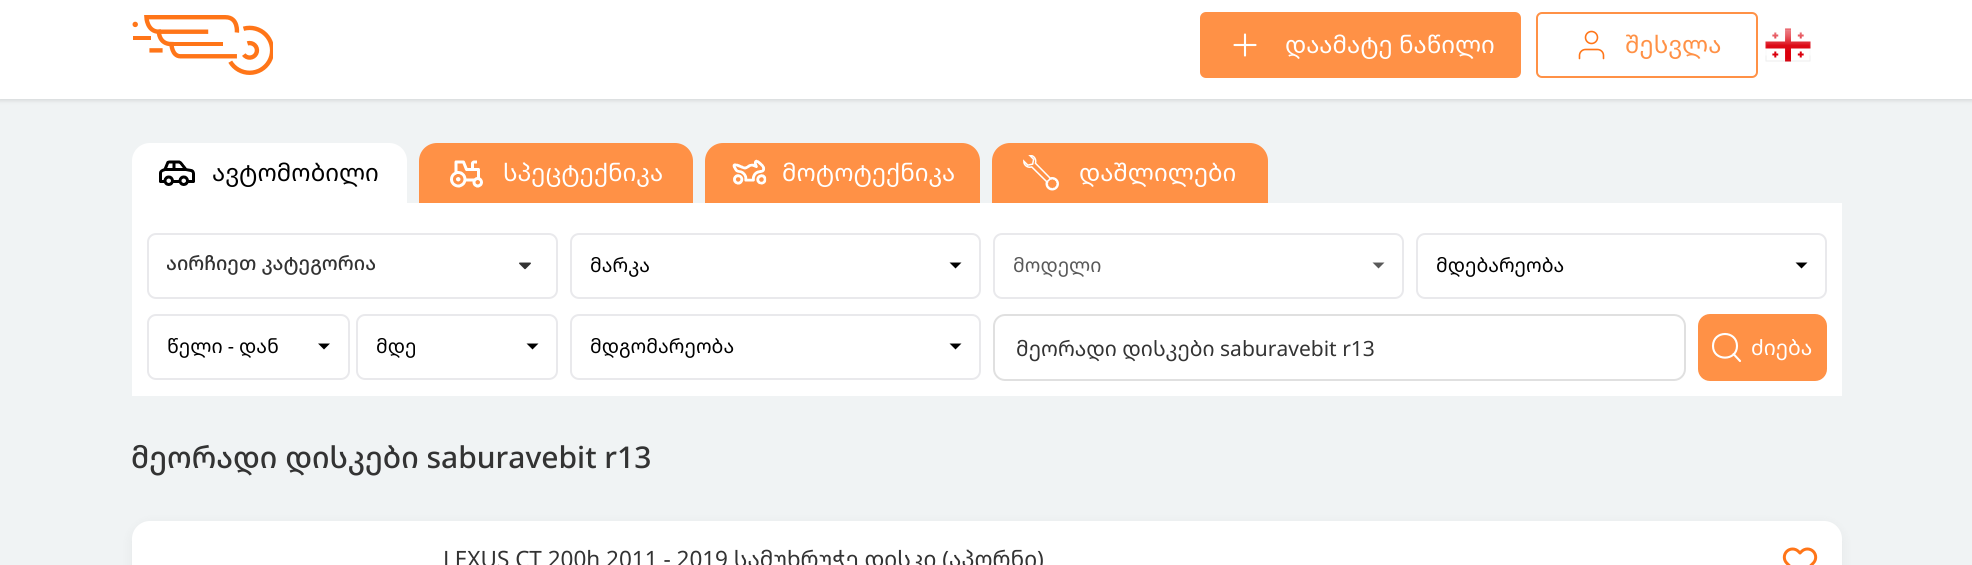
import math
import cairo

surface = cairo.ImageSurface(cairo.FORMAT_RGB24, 1972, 565)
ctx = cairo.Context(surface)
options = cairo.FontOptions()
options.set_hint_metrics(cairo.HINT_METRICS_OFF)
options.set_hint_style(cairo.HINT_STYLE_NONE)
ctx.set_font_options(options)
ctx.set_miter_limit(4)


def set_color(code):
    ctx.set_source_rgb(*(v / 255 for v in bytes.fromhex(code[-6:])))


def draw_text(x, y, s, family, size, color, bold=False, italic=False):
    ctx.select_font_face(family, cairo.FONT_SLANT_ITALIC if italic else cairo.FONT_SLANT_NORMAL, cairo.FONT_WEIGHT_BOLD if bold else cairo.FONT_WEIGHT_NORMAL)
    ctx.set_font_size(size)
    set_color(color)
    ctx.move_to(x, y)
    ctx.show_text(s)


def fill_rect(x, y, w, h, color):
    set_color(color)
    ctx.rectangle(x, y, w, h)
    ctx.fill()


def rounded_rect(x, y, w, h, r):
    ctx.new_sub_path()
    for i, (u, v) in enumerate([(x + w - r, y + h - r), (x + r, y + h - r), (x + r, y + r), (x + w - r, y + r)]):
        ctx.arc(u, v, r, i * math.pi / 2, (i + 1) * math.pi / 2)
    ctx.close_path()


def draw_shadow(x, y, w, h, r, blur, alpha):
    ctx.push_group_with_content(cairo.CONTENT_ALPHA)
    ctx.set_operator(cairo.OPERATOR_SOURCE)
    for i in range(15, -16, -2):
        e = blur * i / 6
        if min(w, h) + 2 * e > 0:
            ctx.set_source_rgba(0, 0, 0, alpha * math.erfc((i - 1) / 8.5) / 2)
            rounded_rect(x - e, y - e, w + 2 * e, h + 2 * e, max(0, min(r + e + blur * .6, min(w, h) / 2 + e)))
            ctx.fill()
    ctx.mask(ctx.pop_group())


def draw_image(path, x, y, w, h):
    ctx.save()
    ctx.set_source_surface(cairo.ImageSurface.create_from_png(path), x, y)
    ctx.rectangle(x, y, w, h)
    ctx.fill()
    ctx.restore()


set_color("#f0f3f4")
ctx.paint()
set_color("#000000")
draw_shadow(-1, -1, 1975, 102, 0, 2, 0.1)
fill_rect(0, 0, 1972, 99, "#ffffff")
draw_image("assets/img1.png", 132, 15, 141, 60)
set_color("#ff9146")
rounded_rect(1200, 12, 321, 66, 6)
ctx.fill()
ctx.new_path()
ctx.move_to(1245, 34.5)
ctx.line_to(1245, 55.5)
ctx.move_to(1234.5, 45)
ctx.line_to(1255.5, 45)
set_color("#ffffff")
ctx.set_line_width(2.1)
ctx.set_line_cap(cairo.LINE_CAP_ROUND)
ctx.set_line_join(cairo.LINE_JOIN_ROUND)
ctx.stroke()
draw_text(1285, 53, "დაამატე ნაწილი", "Noto Sans Georgian", 24, "#ffffff")
rounded_rect(1537, 13, 220, 64, 5)
set_color("#ff9146")
ctx.set_line_width(2)
ctx.set_line_cap(cairo.LINE_CAP_BUTT)
ctx.set_line_join(cairo.LINE_JOIN_MITER)
ctx.stroke()
draw_image("assets/img2.png", 1578, 30, 27, 30)
draw_text(1625, 53, "შესვლა", "Noto Sans Georgian", 24, "#ff9146")
draw_image("assets/img3.png", 1765, 28, 46, 34)
set_color("#ffffff")
ctx.new_path()
ctx.move_to(150, 143)
ctx.line_to(389, 143)
ctx.curve_to(399, 143, 407, 151, 407, 161)
ctx.line_to(407, 203)
ctx.line_to(132, 203)
ctx.line_to(132, 161)
ctx.curve_to(132, 151, 140, 143, 150, 143)
ctx.close_path()
ctx.fill()
draw_image("assets/img4.png", 159, 160, 36, 26)
draw_text(212, 181, "ავტომობილი", "Noto Sans Georgian", 24, "#000000")
set_color("#ff9146")
ctx.new_path()
ctx.move_to(437, 143)
ctx.line_to(675, 143)
ctx.curve_to(685, 143, 693, 151, 693, 161)
ctx.line_to(693, 203)
ctx.line_to(419, 203)
ctx.line_to(419, 161)
ctx.curve_to(419, 151, 427, 143, 437, 143)
ctx.close_path()
ctx.fill()
draw_image("assets/img5.png", 450, 160, 33, 28)
draw_text(503, 181, "სპეცტექნიკა", "Noto Sans Georgian", 24, "#ffffff")
set_color("#ff9146")
ctx.new_path()
ctx.move_to(723, 143)
ctx.line_to(962, 143)
ctx.curve_to(972, 143, 980, 151, 980, 161)
ctx.line_to(980, 203)
ctx.line_to(705, 203)
ctx.line_to(705, 161)
ctx.curve_to(705, 151, 713, 143, 723, 143)
ctx.close_path()
ctx.fill()
draw_image("assets/img6.png", 732, 159, 35, 26)
draw_text(782, 181, "მოტოტექნიკა", "Noto Sans Georgian", 24, "#ffffff")
set_color("#ff9146")
ctx.new_path()
ctx.move_to(1010, 143)
ctx.line_to(1250, 143)
ctx.curve_to(1260, 143, 1268, 151, 1268, 161)
ctx.line_to(1268, 203)
ctx.line_to(992, 203)
ctx.line_to(992, 161)
ctx.curve_to(992, 151, 1000, 143, 1010, 143)
ctx.close_path()
ctx.fill()
draw_image("assets/img7.png", 1023, 155, 36, 36)
draw_text(1079, 181, "დაშლილები", "Noto Sans Georgian", 24, "#ffffff")
fill_rect(132, 203, 1710, 193, "#ffffff")
rounded_rect(148, 234, 409, 64, 8)
set_color("#e9e9ec")
ctx.stroke()
ctx.save()
ctx.rectangle(167, 251, 210, 25)
ctx.clip()
draw_text(166, 270, "აირჩიეთ კატეგორია", "Noto Sans Georgian Medium", 19.5, "#333333")
ctx.restore()
draw_image("assets/img8.png", 519, 262, 12, 8)
rounded_rect(571, 234, 409, 64, 8)
ctx.stroke()
draw_text(590, 272, "მარკა", "Noto Sans Georgian", 19.5, "#000000")
ctx.new_path()
ctx.move_to(949.5, 262.5)
ctx.line_to(961.5, 262.5)
ctx.line_to(955.5, 268.5)
ctx.close_path()
ctx.fill()
rounded_rect(994, 234, 409, 64, 8)
set_color("#e9e9ec")
ctx.stroke()
draw_text(1013, 272, "მოდელი", "Noto Sans Georgian", 19.5, "#595959")
ctx.new_path()
ctx.move_to(1372.5, 262.5)
ctx.line_to(1384.5, 262.5)
ctx.line_to(1378.5, 268.5)
ctx.close_path()
ctx.fill()
rounded_rect(1417, 234, 409, 64, 8)
set_color("#e9e9ec")
ctx.stroke()
draw_text(1436, 272, "მდებარეობა", "Noto Sans Georgian", 19.5, "#000000")
ctx.new_path()
ctx.move_to(1795.5, 262.5)
ctx.line_to(1807.5, 262.5)
ctx.line_to(1801.5, 268.5)
ctx.close_path()
ctx.fill()
rounded_rect(148, 315, 201, 64, 8)
set_color("#e9e9ec")
ctx.stroke()
draw_text(167, 353, "წელი - დან", "Noto Sans Georgian", 19.5, "#000000")
ctx.new_path()
ctx.move_to(318, 343.5)
ctx.line_to(330, 343.5)
ctx.line_to(324, 349.5)
ctx.close_path()
ctx.fill()
rounded_rect(357, 315, 200, 64, 8)
set_color("#e9e9ec")
ctx.stroke()
ctx.save()
ctx.rectangle(377, 332, 142, 28)
ctx.clip()
draw_text(376, 353, "მდე", "Noto Sans Georgian", 19.5, "#000000")
ctx.restore()
set_color("#000000")
ctx.new_path()
ctx.move_to(526.5, 343.5)
ctx.line_to(538.5, 343.5)
ctx.line_to(532.5, 349.5)
ctx.close_path()
ctx.fill()
rounded_rect(571, 315, 409, 64, 8)
set_color("#e9e9ec")
ctx.stroke()
draw_text(590, 353, "მდგომარეობა", "Noto Sans Georgian", 19.5, "#000000")
ctx.new_path()
ctx.move_to(949.5, 343.5)
ctx.line_to(961.5, 343.5)
ctx.line_to(955.5, 349.5)
ctx.close_path()
ctx.fill()
rounded_rect(994, 315, 691, 65, 11)
set_color("#e0e0e0")
ctx.stroke()
draw_text(1016, 356, "მეორადი დისკები saburavebit r13", "Noto Sans Georgian", 21, "#333333")
set_color("#ff9146")
rounded_rect(1698, 314, 129, 67, 12)
ctx.fill()
ctx.new_path()
ctx.move_to(1740, 361)
ctx.line_to(1733.5, 354)
ctx.move_to(1737, 346)
ctx.curve_to(1737, 361.5, 1713, 361.5, 1713, 346)
ctx.curve_to(1713, 330, 1737, 330, 1737, 346)
ctx.close_path()
set_color("#ffffff")
ctx.set_line_width(2.1)
ctx.set_line_cap(cairo.LINE_CAP_ROUND)
ctx.set_line_join(cairo.LINE_JOIN_ROUND)
ctx.stroke()
draw_text(1751, 355, "ძიება", "Noto Sans Georgian", 21, "#ffffff")
draw_text(131, 468, "მეორადი დისკები saburavebit r13", "Noto Sans Georgian Medium", 30, "#333333")
set_color("#000000")
draw_shadow(132, 524, 1710, 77, 18, 6, 0.05)
set_color("#ffffff")
rounded_rect(132, 521, 1710, 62, 18)
ctx.fill()
draw_text(443, 567, "LEXUS CT 200h 2011 - 2019 სამუხრუჭე დისკი (აპორნი)", "Noto Sans Georgian", 22.5, "#333333")
draw_image("assets/img9.png", 1782, 547, 36, 18)
surface.write_to_png("output.png")
